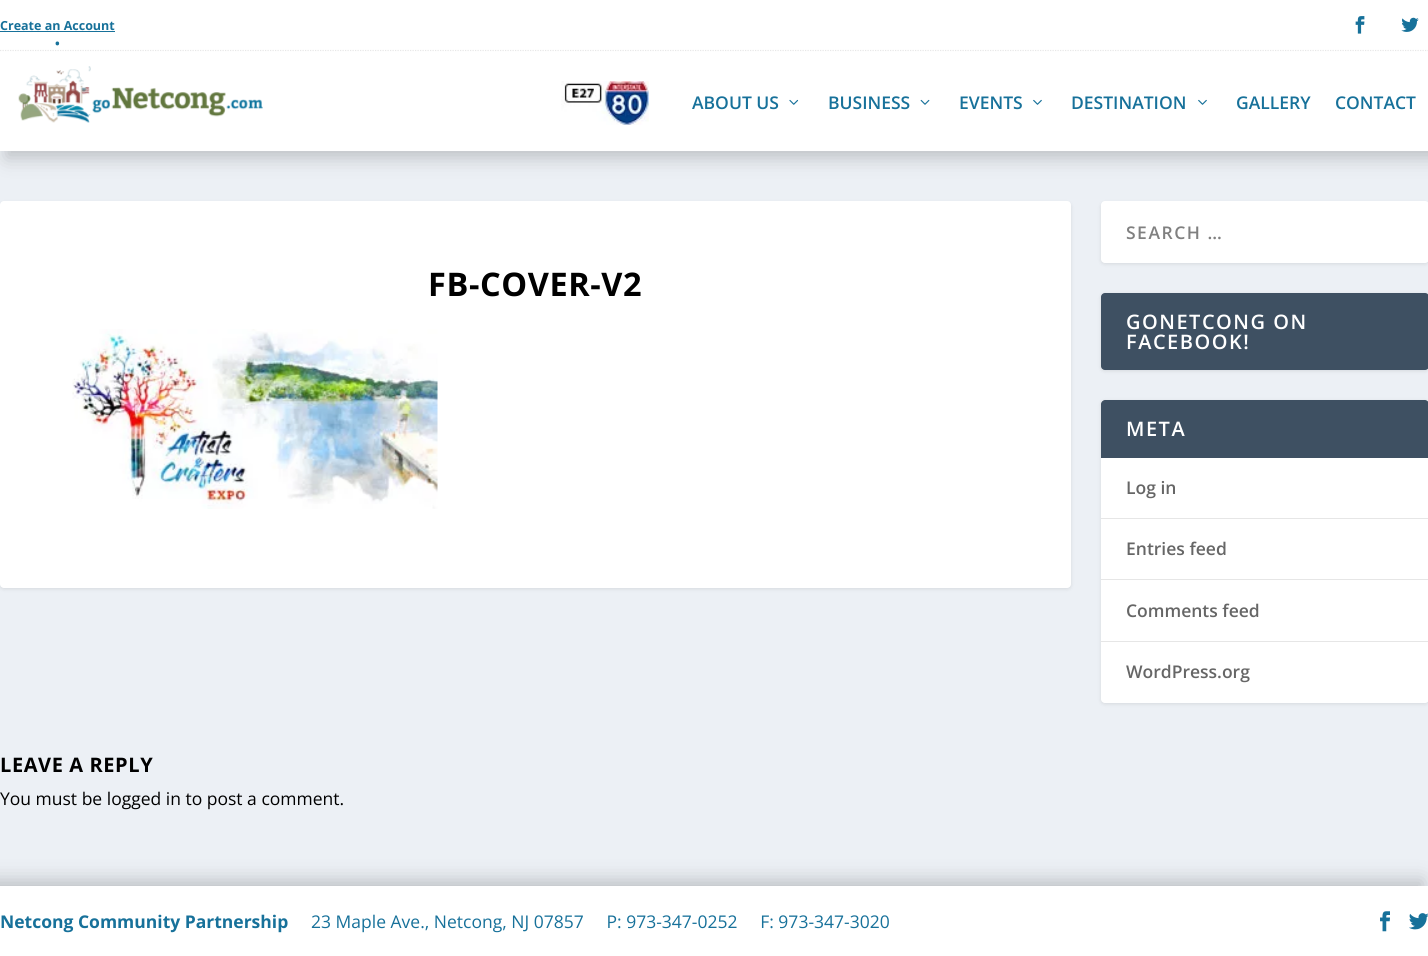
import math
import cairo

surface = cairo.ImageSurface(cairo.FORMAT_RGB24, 1428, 956)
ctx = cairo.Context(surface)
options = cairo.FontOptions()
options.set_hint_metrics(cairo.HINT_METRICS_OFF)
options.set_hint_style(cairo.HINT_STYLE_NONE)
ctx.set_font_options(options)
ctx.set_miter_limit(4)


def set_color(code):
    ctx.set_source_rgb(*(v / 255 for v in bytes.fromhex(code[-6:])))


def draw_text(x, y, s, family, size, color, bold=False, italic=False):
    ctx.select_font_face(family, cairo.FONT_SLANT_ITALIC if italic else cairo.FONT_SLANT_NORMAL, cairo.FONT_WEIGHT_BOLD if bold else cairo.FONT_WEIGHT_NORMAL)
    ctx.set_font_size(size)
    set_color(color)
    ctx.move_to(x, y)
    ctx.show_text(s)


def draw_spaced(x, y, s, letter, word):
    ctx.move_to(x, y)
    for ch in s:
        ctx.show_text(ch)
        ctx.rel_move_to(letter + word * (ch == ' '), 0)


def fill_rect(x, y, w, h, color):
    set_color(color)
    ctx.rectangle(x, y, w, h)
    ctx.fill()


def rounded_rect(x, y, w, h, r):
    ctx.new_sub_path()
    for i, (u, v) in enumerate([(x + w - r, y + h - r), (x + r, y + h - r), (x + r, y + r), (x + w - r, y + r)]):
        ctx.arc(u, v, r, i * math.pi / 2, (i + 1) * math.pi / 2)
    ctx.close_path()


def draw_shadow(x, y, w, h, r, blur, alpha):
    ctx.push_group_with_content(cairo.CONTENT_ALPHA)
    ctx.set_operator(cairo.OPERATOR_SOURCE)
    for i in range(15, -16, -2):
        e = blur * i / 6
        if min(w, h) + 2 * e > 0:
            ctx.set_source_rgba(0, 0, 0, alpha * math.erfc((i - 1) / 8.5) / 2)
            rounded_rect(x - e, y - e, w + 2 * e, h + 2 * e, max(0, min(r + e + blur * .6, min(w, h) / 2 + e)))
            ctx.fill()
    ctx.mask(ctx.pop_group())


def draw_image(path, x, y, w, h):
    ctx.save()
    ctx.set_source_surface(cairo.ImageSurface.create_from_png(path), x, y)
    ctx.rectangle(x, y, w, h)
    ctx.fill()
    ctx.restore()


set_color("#ecf0f5")
ctx.paint()
set_color("#000000")
draw_shadow(6, 6, 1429, 152, 0, 9.5, 0.2)
fill_rect(0, 0, 1428, 151, "#ffffff")
ctx.new_path()
ctx.move_to(0, 50.5)
ctx.line_to(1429, 50.5)
set_color("#e7e7e7")
ctx.set_line_width(1.2)
ctx.set_dash([1.25, 1.25])
ctx.stroke()
draw_text(0, 30, "Create an Account", "Open Sans", 12.5, "#17719a", bold=True)
fill_rect(0, 31, 115, 1, "#17719a")
draw_text(55, 48, "•", "Open Sans", 12.5, "#17719a", bold=True)
draw_image("assets/img1.png", 1355, 16, 10, 18)
draw_image("assets/img2.png", 1401, 17, 18, 15)
draw_image("assets/img3.png", 18, 66, 245, 57)
draw_image("assets/img4.png", 561, 81, 88, 44)
draw_text(692, 109, "ABOUT US", "Open Sans SemiBold", 17.5, "#17719a")
draw_image("assets/img5.png", 789, 99, 10, 6)
draw_text(828, 109, "BUSINESS", "Open Sans SemiBold", 17.5, "#17719a")
draw_image("assets/img6.png", 920, 99, 10, 6)
draw_text(959, 109, "EVENTS", "Open Sans SemiBold", 17.5, "#17719a")
draw_image("assets/img7.png", 1033, 99, 9, 6)
draw_text(1071, 109, "DESTINATION", "Open Sans SemiBold", 17.5, "#17719a")
draw_image("assets/img7.png", 1198, 99, 9, 6)
draw_text(1236, 109, "GALLERY", "Open Sans SemiBold", 17.5, "#17719a")
draw_text(1335, 109, "CONTACT", "Open Sans SemiBold", 17.5, "#17719a")
set_color("#000000")
draw_shadow(0, 203, 1071, 386, 4, 2, 0.1)
set_color("#ffffff")
rounded_rect(0, 201, 1071, 387, 4)
ctx.fill()
ctx.select_font_face("Open Sans", cairo.FONT_SLANT_NORMAL, cairo.FONT_WEIGHT_BOLD)
ctx.set_font_size(32.5)
set_color("#000000")
draw_spaced(428, 296, "FB-COVER-V2", 0.6, 0)
draw_image("assets/img8.png", 72, 329, 366, 180)
ctx.set_font_size(20)
draw_spaced(0, 772, "LEAVE A REPLY", 0.6, 0)
draw_text(0, 805, "You must be logged in to post a comment.", "Open Sans", 17.5, "#000000")
set_color("#000000")
draw_shadow(1101, 203, 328, 61, 4, 2, 0.1)
set_color("#ffffff")
rounded_rect(1101, 201, 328, 62, 4)
ctx.fill()
ctx.select_font_face("Open Sans SemiBold")
set_color("#808080")
draw_spaced(1126, 239, "SEARCH …", 1.5, 0)
set_color("#000000")
draw_shadow(1101, 294, 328, 77, 4, 2, 0.1)
set_color("#3e5062")
rounded_rect(1101, 293, 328, 77, 4)
ctx.fill()
ctx.set_font_size(20)
set_color("#ffffff")
draw_spaced(1126, 329, "GONETCONG ON", 1.5, 0)
draw_spaced(1126, 349, "FACEBOOK!", 1.5, 0)
set_color("#000000")
draw_shadow(1101, 401, 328, 303, 4, 2, 0.1)
set_color("#ffffff")
rounded_rect(1101, 400, 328, 303, 4)
ctx.fill()
set_color("#3e5062")
ctx.new_path()
ctx.move_to(1105, 400)
ctx.line_to(1425, 400)
ctx.curve_to(1427, 400, 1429, 402, 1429, 404)
ctx.line_to(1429, 458)
ctx.line_to(1101, 458)
ctx.line_to(1101, 404)
ctx.curve_to(1101, 402, 1103, 400, 1105, 400)
ctx.close_path()
ctx.fill()
set_color("#ffffff")
draw_spaced(1126, 436, "META", 1.5, 0)
fill_rect(1101, 518, 327, 1, "#e6e6e6")
draw_text(1126, 494, "Log in", "Open Sans SemiBold", 17.5, "#666666")
fill_rect(1101, 579, 327, 1, "#e6e6e6")
draw_text(1126, 555, "Entries feed", "Open Sans SemiBold", 17.5, "#666666")
fill_rect(1101, 641, 327, 1, "#e6e6e6")
draw_text(1126, 617, "Comments feed", "Open Sans SemiBold", 17.5, "#666666")
draw_text(1126, 678, "WordPress.org", "Open Sans SemiBold", 17.5, "#666666")
set_color("#000000")
draw_shadow(-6, 880, 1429, 70, 0, 9.5, 0.2)
fill_rect(0, 886, 1428, 70, "#ffffff")
draw_text(0, 928, "Netcong Community Partnership", "Open Sans", 17.5, "#17719a", bold=True)
draw_text(311, 928, "23 Maple Ave., Netcong, NJ 07857     P: 973-347-0252     F: 973-347-3020", "Open Sans", 17.5, "#17719a")
draw_image("assets/img9.png", 1380, 911, 10, 21)
draw_image("assets/img10.png", 1409, 913, 19, 17)
surface.write_to_png("output.png")
